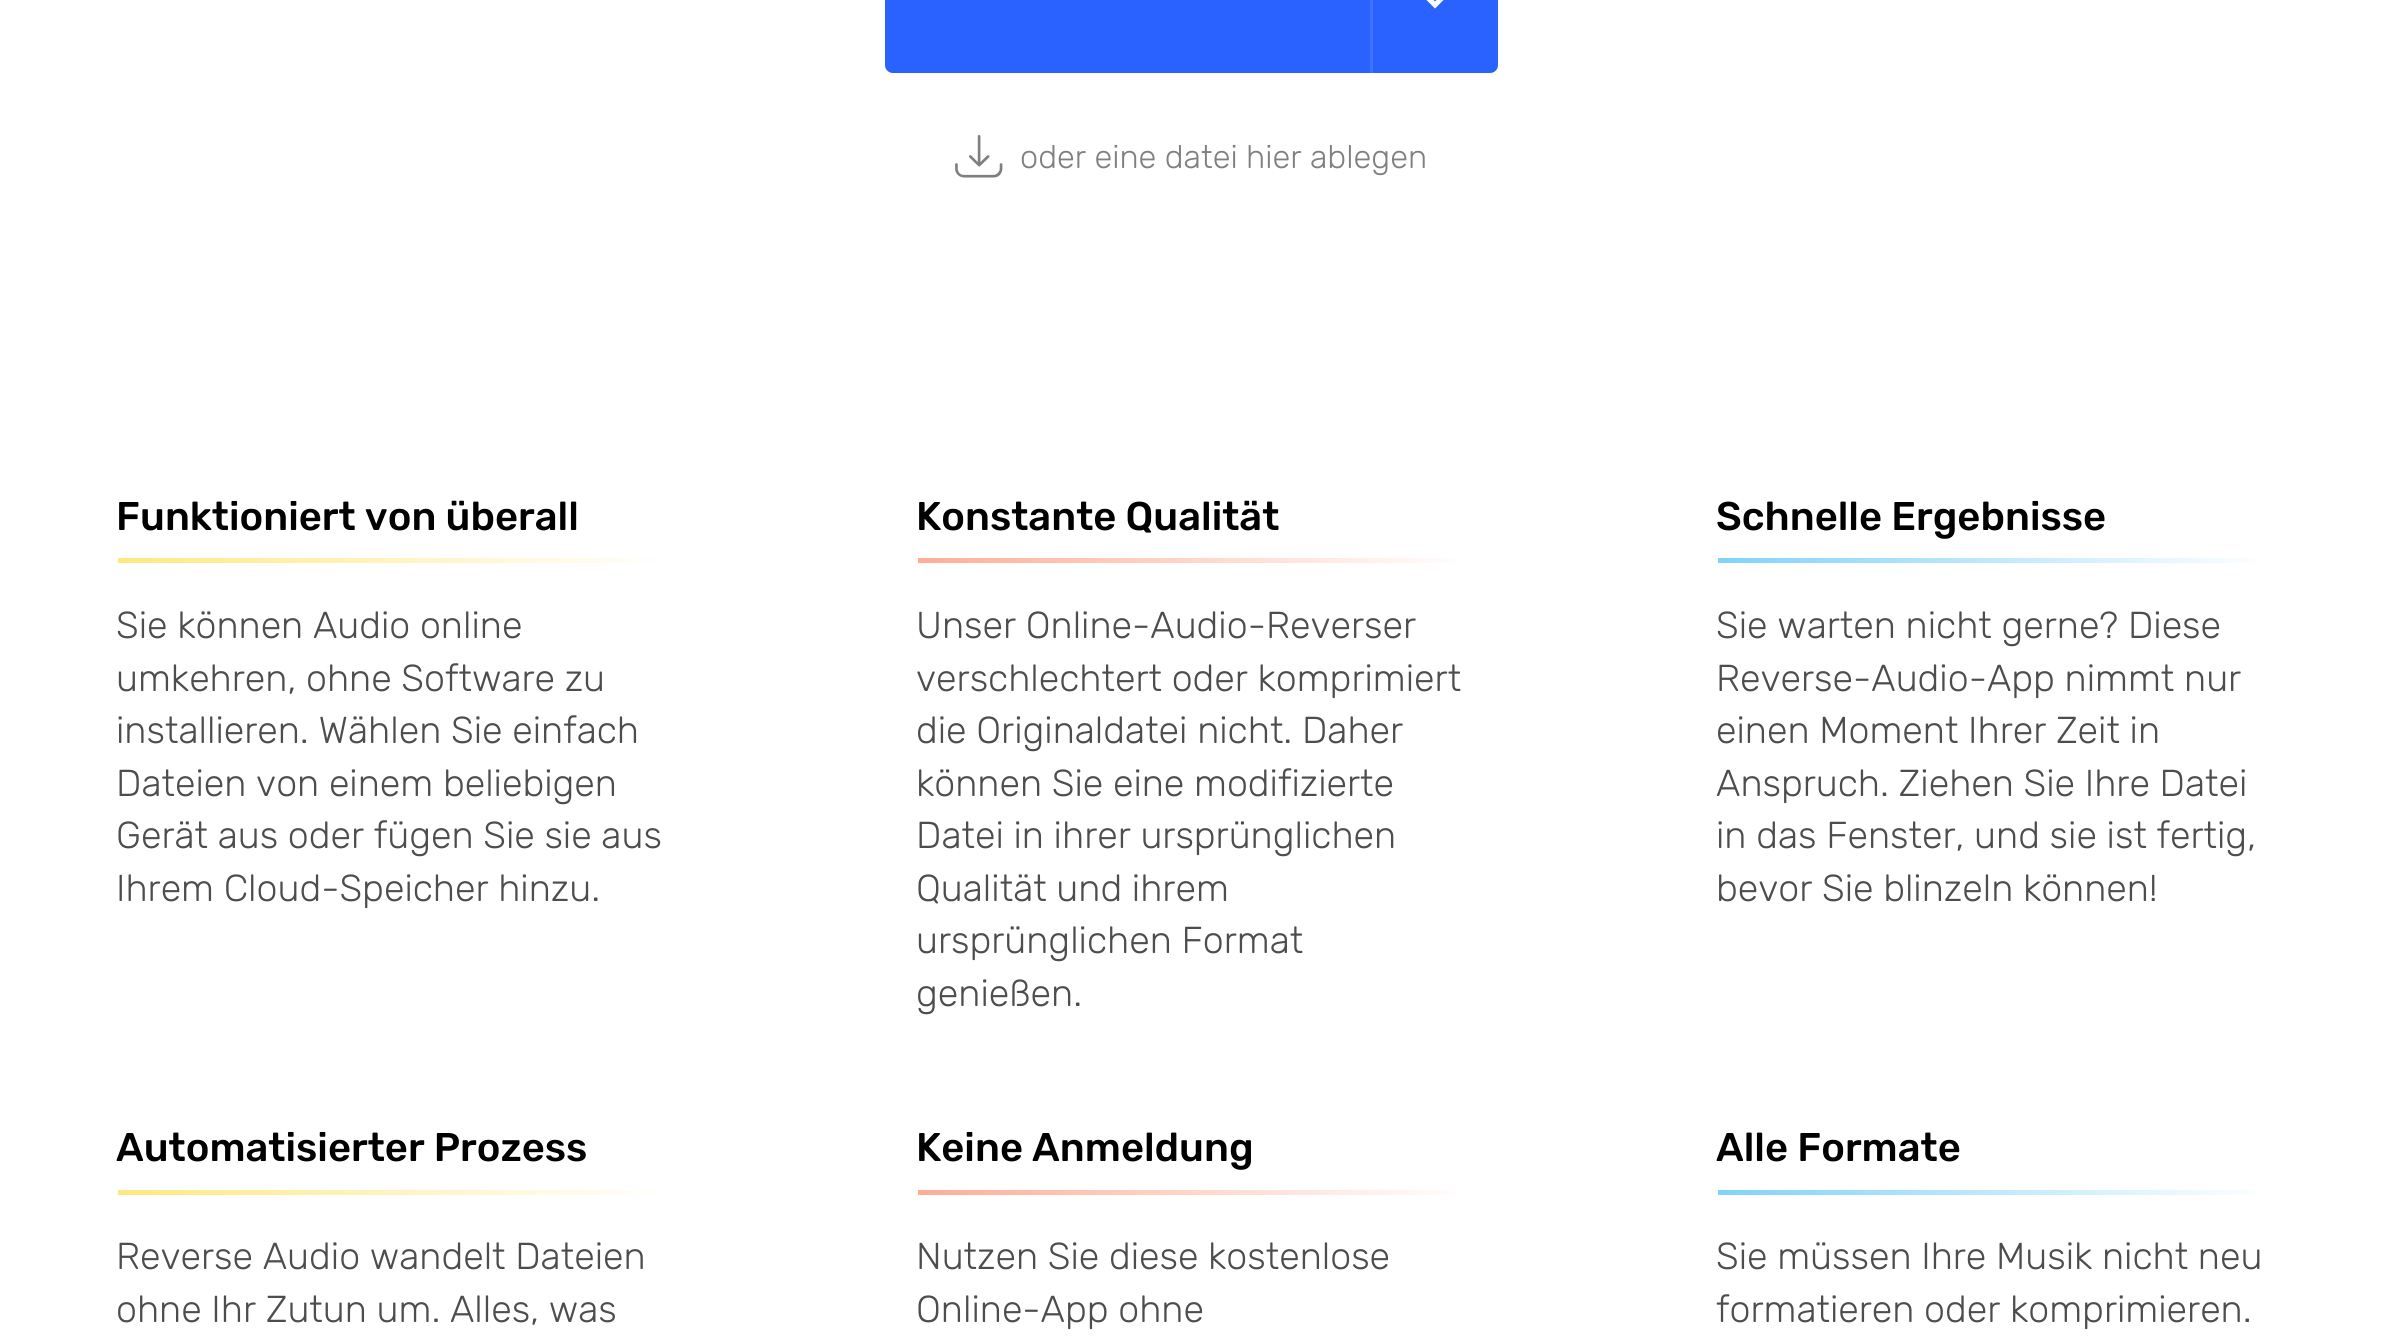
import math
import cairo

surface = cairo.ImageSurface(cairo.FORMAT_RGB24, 2382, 1341)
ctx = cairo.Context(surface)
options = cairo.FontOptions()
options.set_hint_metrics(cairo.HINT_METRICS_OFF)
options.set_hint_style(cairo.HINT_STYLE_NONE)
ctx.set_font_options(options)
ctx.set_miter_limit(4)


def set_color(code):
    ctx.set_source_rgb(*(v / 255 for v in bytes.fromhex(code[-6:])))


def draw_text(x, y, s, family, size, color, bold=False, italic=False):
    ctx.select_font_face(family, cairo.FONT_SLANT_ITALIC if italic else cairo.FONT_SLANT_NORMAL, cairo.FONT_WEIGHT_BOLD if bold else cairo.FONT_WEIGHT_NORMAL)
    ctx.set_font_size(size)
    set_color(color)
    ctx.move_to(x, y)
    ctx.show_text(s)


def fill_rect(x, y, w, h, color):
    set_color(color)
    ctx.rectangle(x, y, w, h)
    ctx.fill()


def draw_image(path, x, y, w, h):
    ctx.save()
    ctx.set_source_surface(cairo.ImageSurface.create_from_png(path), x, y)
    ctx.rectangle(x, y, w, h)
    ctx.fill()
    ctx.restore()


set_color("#ffffff")
ctx.paint()
set_color("#2962ff")
ctx.new_path()
ctx.move_to(893, -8)
ctx.line_to(1373, -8)
ctx.line_to(1373, 73)
ctx.line_to(893, 73)
ctx.curve_to(888.5, 73, 885, 69.5, 885, 65)
ctx.line_to(885, 0)
ctx.curve_to(885, -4.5, 888.5, -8, 893, -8)
ctx.close_path()
ctx.fill()
fill_rect(1370, 0, 3, 73, "#3e72ff")
set_color("#2962ff")
ctx.new_path()
ctx.move_to(1373, -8)
ctx.line_to(1490, -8)
ctx.curve_to(1494.5, -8, 1498, -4.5, 1498, 0)
ctx.line_to(1498, 65)
ctx.curve_to(1498, 69.5, 1494.5, 73, 1490, 73)
ctx.line_to(1373, 73)
ctx.close_path()
ctx.fill()
draw_image("assets/img1.png", 1426, 0, 18, 9)
draw_image("assets/img2.png", 955, 135, 48, 43)
draw_text(1020, 168, "oder eine datei hier ablegen", "Rubik Light", 32.5, "#808080")
draw_text(116, 530, "Funktioniert von überall", "Rubik Medium", 40, "#000000")
gradient = cairo.LinearGradient(118, 560, 668, 560)
gradient.add_color_stop_rgba(0, 1, 0.91, 0.502, 1)
gradient.add_color_stop_rgba(1, 1, 1, 1, 1)
ctx.set_source(gradient)
ctx.rectangle(118, 558, 539, 5)
ctx.fill()
draw_text(116, 638, "Sie können Audio online", "Rubik Light", 37.5, "#4d4d4d")
draw_text(116, 691, "umkehren, ohne Software zu", "Rubik Light", 37.5, "#4d4d4d")
draw_text(116, 743, "installieren. Wählen Sie einfach", "Rubik Light", 37.5, "#4d4d4d")
draw_text(116, 796, "Dateien von einem beliebigen", "Rubik Light", 37.5, "#4d4d4d")
draw_text(116, 848, "Gerät aus oder fügen Sie sie aus", "Rubik Light", 37.5, "#4d4d4d")
draw_text(116, 901, "Ihrem Cloud-Speicher hinzu.", "Rubik Light", 37.5, "#4d4d4d")
draw_text(916, 530, "Konstante Qualität", "Rubik Medium", 40, "#000000")
gradient = cairo.LinearGradient(918, 560, 1468, 560)
gradient.add_color_stop_rgba(0, 1, 0.678, 0.58, 1)
gradient.add_color_stop_rgba(1, 1, 1, 1, 1)
ctx.set_source(gradient)
ctx.rectangle(918, 558, 537, 5)
ctx.fill()
draw_text(916, 638, "Unser Online-Audio-Reverser", "Rubik Light", 37.5, "#4d4d4d")
draw_text(916, 691, "verschlechtert oder komprimiert", "Rubik Light", 37.5, "#4d4d4d")
draw_text(916, 743, "die Originaldatei nicht. Daher", "Rubik Light", 37.5, "#4d4d4d")
draw_text(916, 796, "können Sie eine modifizierte", "Rubik Light", 37.5, "#4d4d4d")
draw_text(916, 848, "Datei in ihrer ursprünglichen", "Rubik Light", 37.5, "#4d4d4d")
draw_text(916, 901, "Qualität und ihrem", "Rubik Light", 37.5, "#4d4d4d")
draw_text(916, 953, "ursprünglichen Format", "Rubik Light", 37.5, "#4d4d4d")
draw_text(916, 1006, "genießen.", "Rubik Light", 37.5, "#4d4d4d")
draw_text(1716, 530, "Schnelle Ergebnisse", "Rubik Medium", 40, "#000000")
gradient = cairo.LinearGradient(1718, 560, 2268, 560)
gradient.add_color_stop_rgba(0, 0.502, 0.827, 0.98, 1)
gradient.add_color_stop_rgba(1, 1, 1, 1, 1)
ctx.set_source(gradient)
ctx.rectangle(1718, 558, 539, 5)
ctx.fill()
draw_text(1716, 638, "Sie warten nicht gerne? Diese", "Rubik Light", 37.5, "#4d4d4d")
draw_text(1716, 691, "Reverse-Audio-App nimmt nur", "Rubik Light", 37.5, "#4d4d4d")
draw_text(1716, 743, "einen Moment Ihrer Zeit in", "Rubik Light", 37.5, "#4d4d4d")
draw_text(1716, 796, "Anspruch. Ziehen Sie Ihre Datei", "Rubik Light", 37.5, "#4d4d4d")
draw_text(1716, 848, "in das Fenster, und sie ist fertig,", "Rubik Light", 37.5, "#4d4d4d")
draw_text(1716, 901, "bevor Sie blinzeln können!", "Rubik Light", 37.5, "#4d4d4d")
draw_text(116, 1161, "Automatisierter Prozess", "Rubik Medium", 40, "#000000")
gradient = cairo.LinearGradient(118, 1193, 668, 1193)
gradient.add_color_stop_rgba(0, 1, 0.91, 0.502, 1)
gradient.add_color_stop_rgba(1, 1, 1, 1, 1)
ctx.set_source(gradient)
ctx.rectangle(118, 1190, 539, 5)
ctx.fill()
draw_text(116, 1269, "Reverse Audio wandelt Dateien", "Rubik Light", 37.5, "#4d4d4d")
draw_text(116, 1322, "ohne Ihr Zutun um. Alles, was", "Rubik Light", 37.5, "#4d4d4d")
draw_text(916, 1161, "Keine Anmeldung", "Rubik Medium", 40, "#000000")
gradient = cairo.LinearGradient(918, 1193, 1468, 1193)
gradient.add_color_stop_rgba(0, 1, 0.678, 0.58, 1)
gradient.add_color_stop_rgba(1, 1, 1, 1, 1)
ctx.set_source(gradient)
ctx.rectangle(918, 1190, 537, 5)
ctx.fill()
draw_text(916, 1269, "Nutzen Sie diese kostenlose", "Rubik Light", 37.5, "#4d4d4d")
draw_text(916, 1322, "Online-App ohne", "Rubik Light", 37.5, "#4d4d4d")
draw_text(1716, 1161, "Alle Formate", "Rubik Medium", 40, "#000000")
gradient = cairo.LinearGradient(1718, 1193, 2268, 1193)
gradient.add_color_stop_rgba(0, 0.502, 0.827, 0.98, 1)
gradient.add_color_stop_rgba(1, 1, 1, 1, 1)
ctx.set_source(gradient)
ctx.rectangle(1718, 1190, 539, 5)
ctx.fill()
draw_text(1716, 1269, "Sie müssen Ihre Musik nicht neu", "Rubik Light", 37.5, "#4d4d4d")
draw_text(1716, 1322, "formatieren oder komprimieren.", "Rubik Light", 37.5, "#4d4d4d")
surface.write_to_png("output.png")
